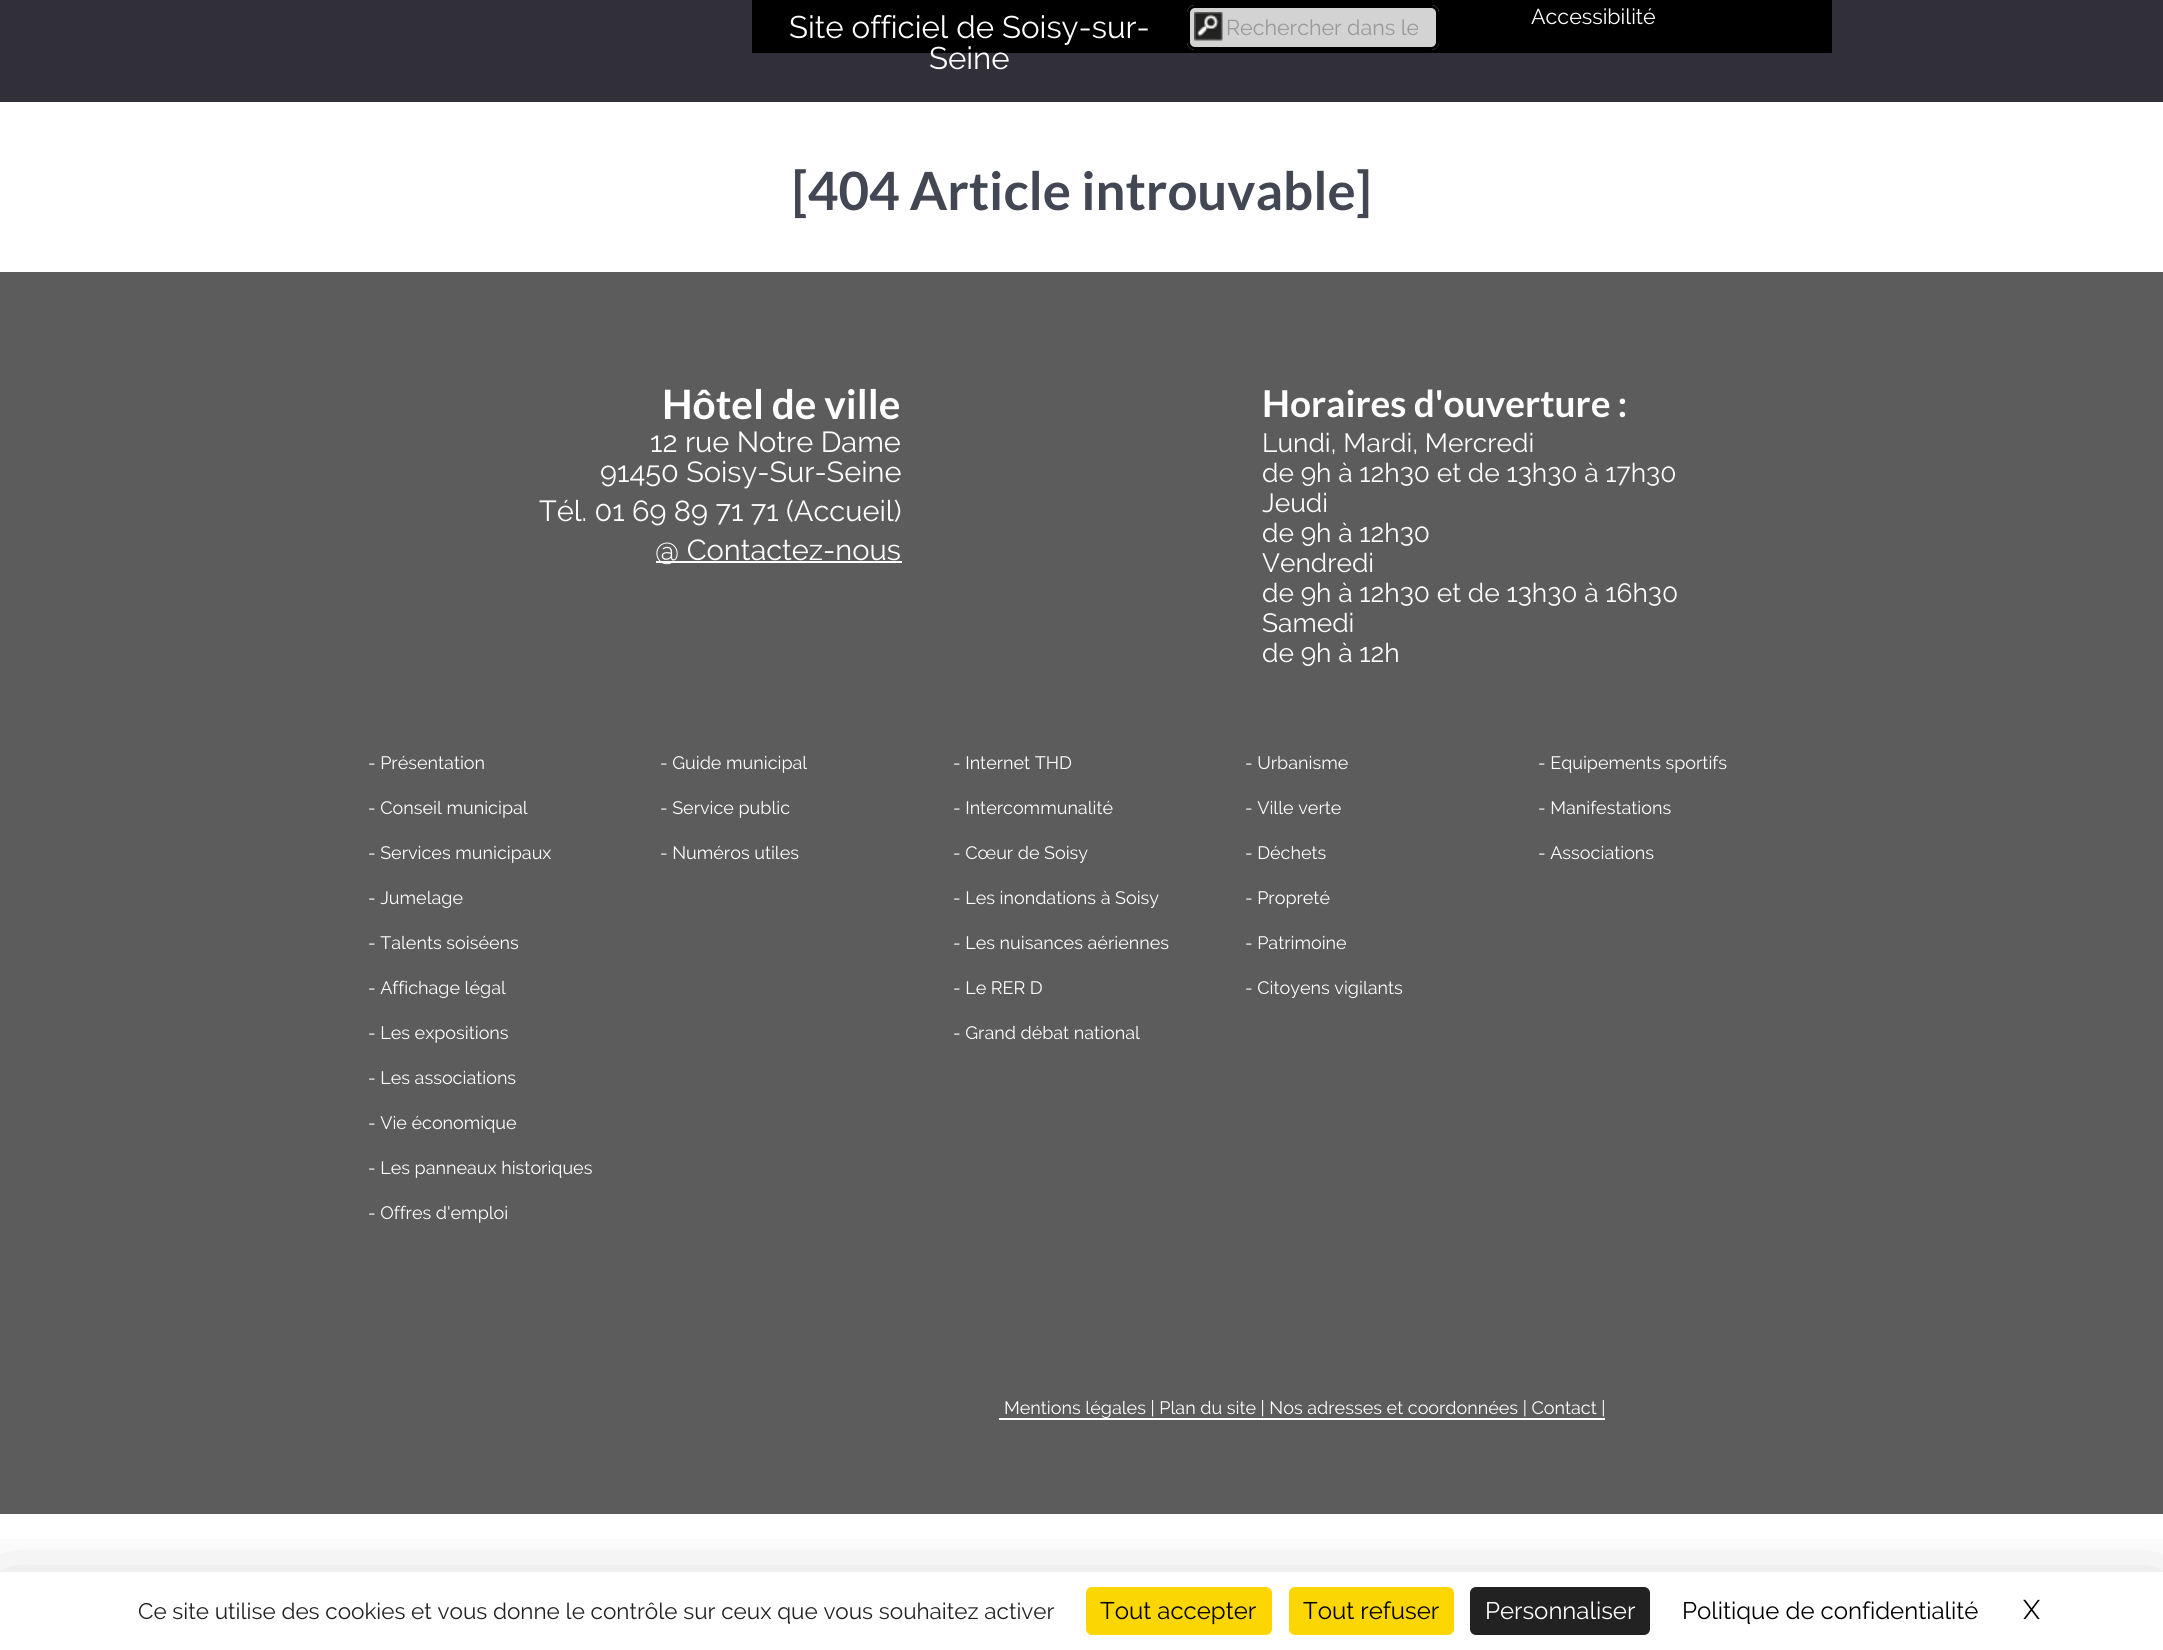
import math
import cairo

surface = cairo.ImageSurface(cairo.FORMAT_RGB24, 2163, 1650)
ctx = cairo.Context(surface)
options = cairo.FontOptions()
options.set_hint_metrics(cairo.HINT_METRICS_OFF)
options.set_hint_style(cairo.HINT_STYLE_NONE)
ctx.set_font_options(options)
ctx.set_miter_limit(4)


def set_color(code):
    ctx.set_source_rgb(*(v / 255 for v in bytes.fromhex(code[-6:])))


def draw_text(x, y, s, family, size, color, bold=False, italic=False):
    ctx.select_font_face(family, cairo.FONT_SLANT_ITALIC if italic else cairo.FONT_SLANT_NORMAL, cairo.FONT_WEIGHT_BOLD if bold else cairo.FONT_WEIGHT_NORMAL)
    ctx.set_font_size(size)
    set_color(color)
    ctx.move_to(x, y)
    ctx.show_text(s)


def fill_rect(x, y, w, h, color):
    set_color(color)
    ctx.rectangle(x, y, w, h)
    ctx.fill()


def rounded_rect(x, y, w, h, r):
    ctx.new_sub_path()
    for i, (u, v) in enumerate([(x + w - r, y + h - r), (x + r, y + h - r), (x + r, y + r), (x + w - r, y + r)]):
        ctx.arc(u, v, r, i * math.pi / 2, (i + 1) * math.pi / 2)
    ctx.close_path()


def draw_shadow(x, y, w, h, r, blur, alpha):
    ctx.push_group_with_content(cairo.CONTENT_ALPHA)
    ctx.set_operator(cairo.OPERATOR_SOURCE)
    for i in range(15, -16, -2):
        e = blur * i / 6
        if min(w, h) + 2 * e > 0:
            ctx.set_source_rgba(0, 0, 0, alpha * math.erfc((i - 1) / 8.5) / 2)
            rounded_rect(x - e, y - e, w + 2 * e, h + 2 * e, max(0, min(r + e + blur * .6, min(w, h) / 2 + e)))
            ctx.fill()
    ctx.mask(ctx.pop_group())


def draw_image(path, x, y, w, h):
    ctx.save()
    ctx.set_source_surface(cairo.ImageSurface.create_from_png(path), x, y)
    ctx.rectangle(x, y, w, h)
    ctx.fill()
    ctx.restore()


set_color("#ffffff")
ctx.paint()
fill_rect(0, 0, 2163, 102, "#312f38")
fill_rect(752, 0, 1080, 53, "#000000")
draw_text(789, 38, "Site officiel de Soisy-sur-", "Raleway", 31.25, "#ffffff")
draw_text(929, 69, "Seine", "Raleway", 31.25, "#ffffff")
set_color("#d3d3d3")
rounded_rect(1187, 5, 252, 45, 8)
ctx.fill()
draw_image("assets/img1.png", 1194, 12, 29, 29)
rounded_rect(1188.5, 6.5, 249, 42, 6.5)
set_color("#000000")
ctx.set_line_width(3)
ctx.stroke()
draw_text(1226, 35, "Rechercher dans le", "Raleway", 21.5, "#999999")
draw_text(1531, 24, "Accessibilité", "Raleway", 21.5, "#ffffff")
draw_text(792, 210, "[404 Article introuvable]", "Lato", 52.75, "#424753", bold=True)
fill_rect(0, 272, 2163, 1242, "#5c5c5c")
draw_text(662, 419, "Hôtel de ville", "Lato", 40.5, "#ffffff", bold=True)
draw_text(650, 452, "12 rue Notre Dame", "Raleway", 29, "#ffffff")
draw_text(600, 482, "91450 Soisy-Sur-Seine", "Raleway", 29, "#ffffff")
draw_text(539, 521, "Tél. 01 69 89 71 71 (Accueil)", "Raleway", 29, "#ffffff")
fill_rect(656, 561, 246, 2, "#ffffff")
draw_text(655, 560, "@ Contactez-nous", "Raleway", 29, "#ffffff")
draw_text(1262, 417, "Horaires d'ouverture :", "Lato", 37, "#ffffff", bold=True)
draw_text(1262, 452, "Lundi, Mardi, Mercredi", "Raleway", 26.4, "#ffffff")
draw_text(1262, 482, "de 9h à 12h30 et de 13h30 à 17h30", "Raleway", 26.4, "#ffffff")
draw_text(1262, 512, "Jeudi", "Raleway", 26.4, "#ffffff")
draw_text(1262, 542, "de 9h à 12h30", "Raleway", 26.4, "#ffffff")
draw_text(1262, 572, "Vendredi", "Raleway", 26.4, "#ffffff")
draw_text(1262, 602, "de 9h à 12h30 et de 13h30 à 16h30", "Raleway", 26.4, "#ffffff")
draw_text(1262, 632, "Samedi", "Raleway", 26.4, "#ffffff")
draw_text(1262, 662, "de 9h à 12h", "Raleway", 26.4, "#ffffff")
draw_text(368, 769, "- Présentation", "Raleway", 18, "#ffffff")
draw_text(368, 814, "- Conseil municipal", "Raleway", 18, "#ffffff")
draw_text(368, 859, "- Services municipaux", "Raleway", 18, "#ffffff")
draw_text(368, 904, "- Jumelage", "Raleway", 18, "#ffffff")
draw_text(368, 949, "- Talents soiséens", "Raleway", 18, "#ffffff")
draw_text(368, 994, "- Affichage légal", "Raleway", 18, "#ffffff")
draw_text(368, 1039, "- Les expositions", "Raleway", 18, "#ffffff")
draw_text(368, 1084, "- Les associations", "Raleway", 18, "#ffffff")
draw_text(368, 1129, "- Vie économique", "Raleway", 18, "#ffffff")
draw_text(368, 1174, "- Les panneaux historiques", "Raleway", 18, "#ffffff")
draw_text(368, 1219, "- Offres d'emploi", "Raleway", 18, "#ffffff")
draw_text(660, 769, "- Guide municipal", "Raleway", 18, "#ffffff")
draw_text(660, 814, "- Service public", "Raleway", 18, "#ffffff")
draw_text(660, 859, "- Numéros utiles", "Raleway", 18, "#ffffff")
draw_text(953, 769, "- Internet THD", "Raleway", 18, "#ffffff")
draw_text(953, 814, "- Intercommunalité", "Raleway", 18, "#ffffff")
draw_text(953, 859, "- Cœur de Soisy", "Raleway", 18, "#ffffff")
draw_text(953, 904, "- Les inondations à Soisy", "Raleway", 18, "#ffffff")
draw_text(953, 949, "- Les nuisances aériennes", "Raleway", 18, "#ffffff")
draw_text(953, 994, "- Le RER D", "Raleway", 18, "#ffffff")
draw_text(953, 1039, "- Grand débat national", "Raleway", 18, "#ffffff")
draw_text(1245, 769, "- Urbanisme", "Raleway", 18, "#ffffff")
draw_text(1245, 814, "- Ville verte", "Raleway", 18, "#ffffff")
draw_text(1245, 859, "- Déchets", "Raleway", 18, "#ffffff")
draw_text(1245, 904, "- Propreté", "Raleway", 18, "#ffffff")
draw_text(1245, 949, "- Patrimoine", "Raleway", 18, "#ffffff")
draw_text(1245, 994, "- Citoyens vigilants", "Raleway", 18, "#ffffff")
draw_text(1538, 769, "- Equipements sportifs", "Raleway", 18, "#ffffff")
draw_text(1538, 814, "- Manifestations", "Raleway", 18, "#ffffff")
draw_text(1538, 859, "- Associations", "Raleway", 18, "#ffffff")
fill_rect(999, 1418, 606, 2, "#ffffff")
draw_text(1004, 1414, "Mentions légales | Plan du site | Nos adresses et coordonnées | Contact |", "Raleway", 18, "#ffffff")
ctx.save()
ctx.rectangle(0, 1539, 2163, 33)
ctx.clip()
set_color("#000000")
draw_shadow(0, 1602, 2163, 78, 0, 45, 0.25)
ctx.restore()
draw_text(138, 1619, "Ce site utilise des cookies et vous donne le contrôle sur ceux que vous souhaitez activer", "Raleway", 22.5, "#222222")
set_color("#fbd600")
rounded_rect(1086, 1587, 186, 48, 6)
ctx.fill()
draw_text(1100, 1619, "Tout accepter", "Raleway", 24, "#000000")
set_color("#fbd600")
rounded_rect(1289, 1587, 165, 48, 6)
ctx.fill()
draw_text(1303, 1619, "Tout refuser", "Raleway", 24, "#000000")
set_color("#222222")
rounded_rect(1470, 1587, 180, 48, 6)
ctx.fill()
draw_text(1485, 1619, "Personnaliser", "Raleway", 24, "#ffffff")
draw_text(1682, 1619, "Politique de confidentialité", "Raleway", 24, "#000000")
draw_text(2023, 1619, "X", "Raleway", 27, "#000000")
surface.write_to_png("output.png")
